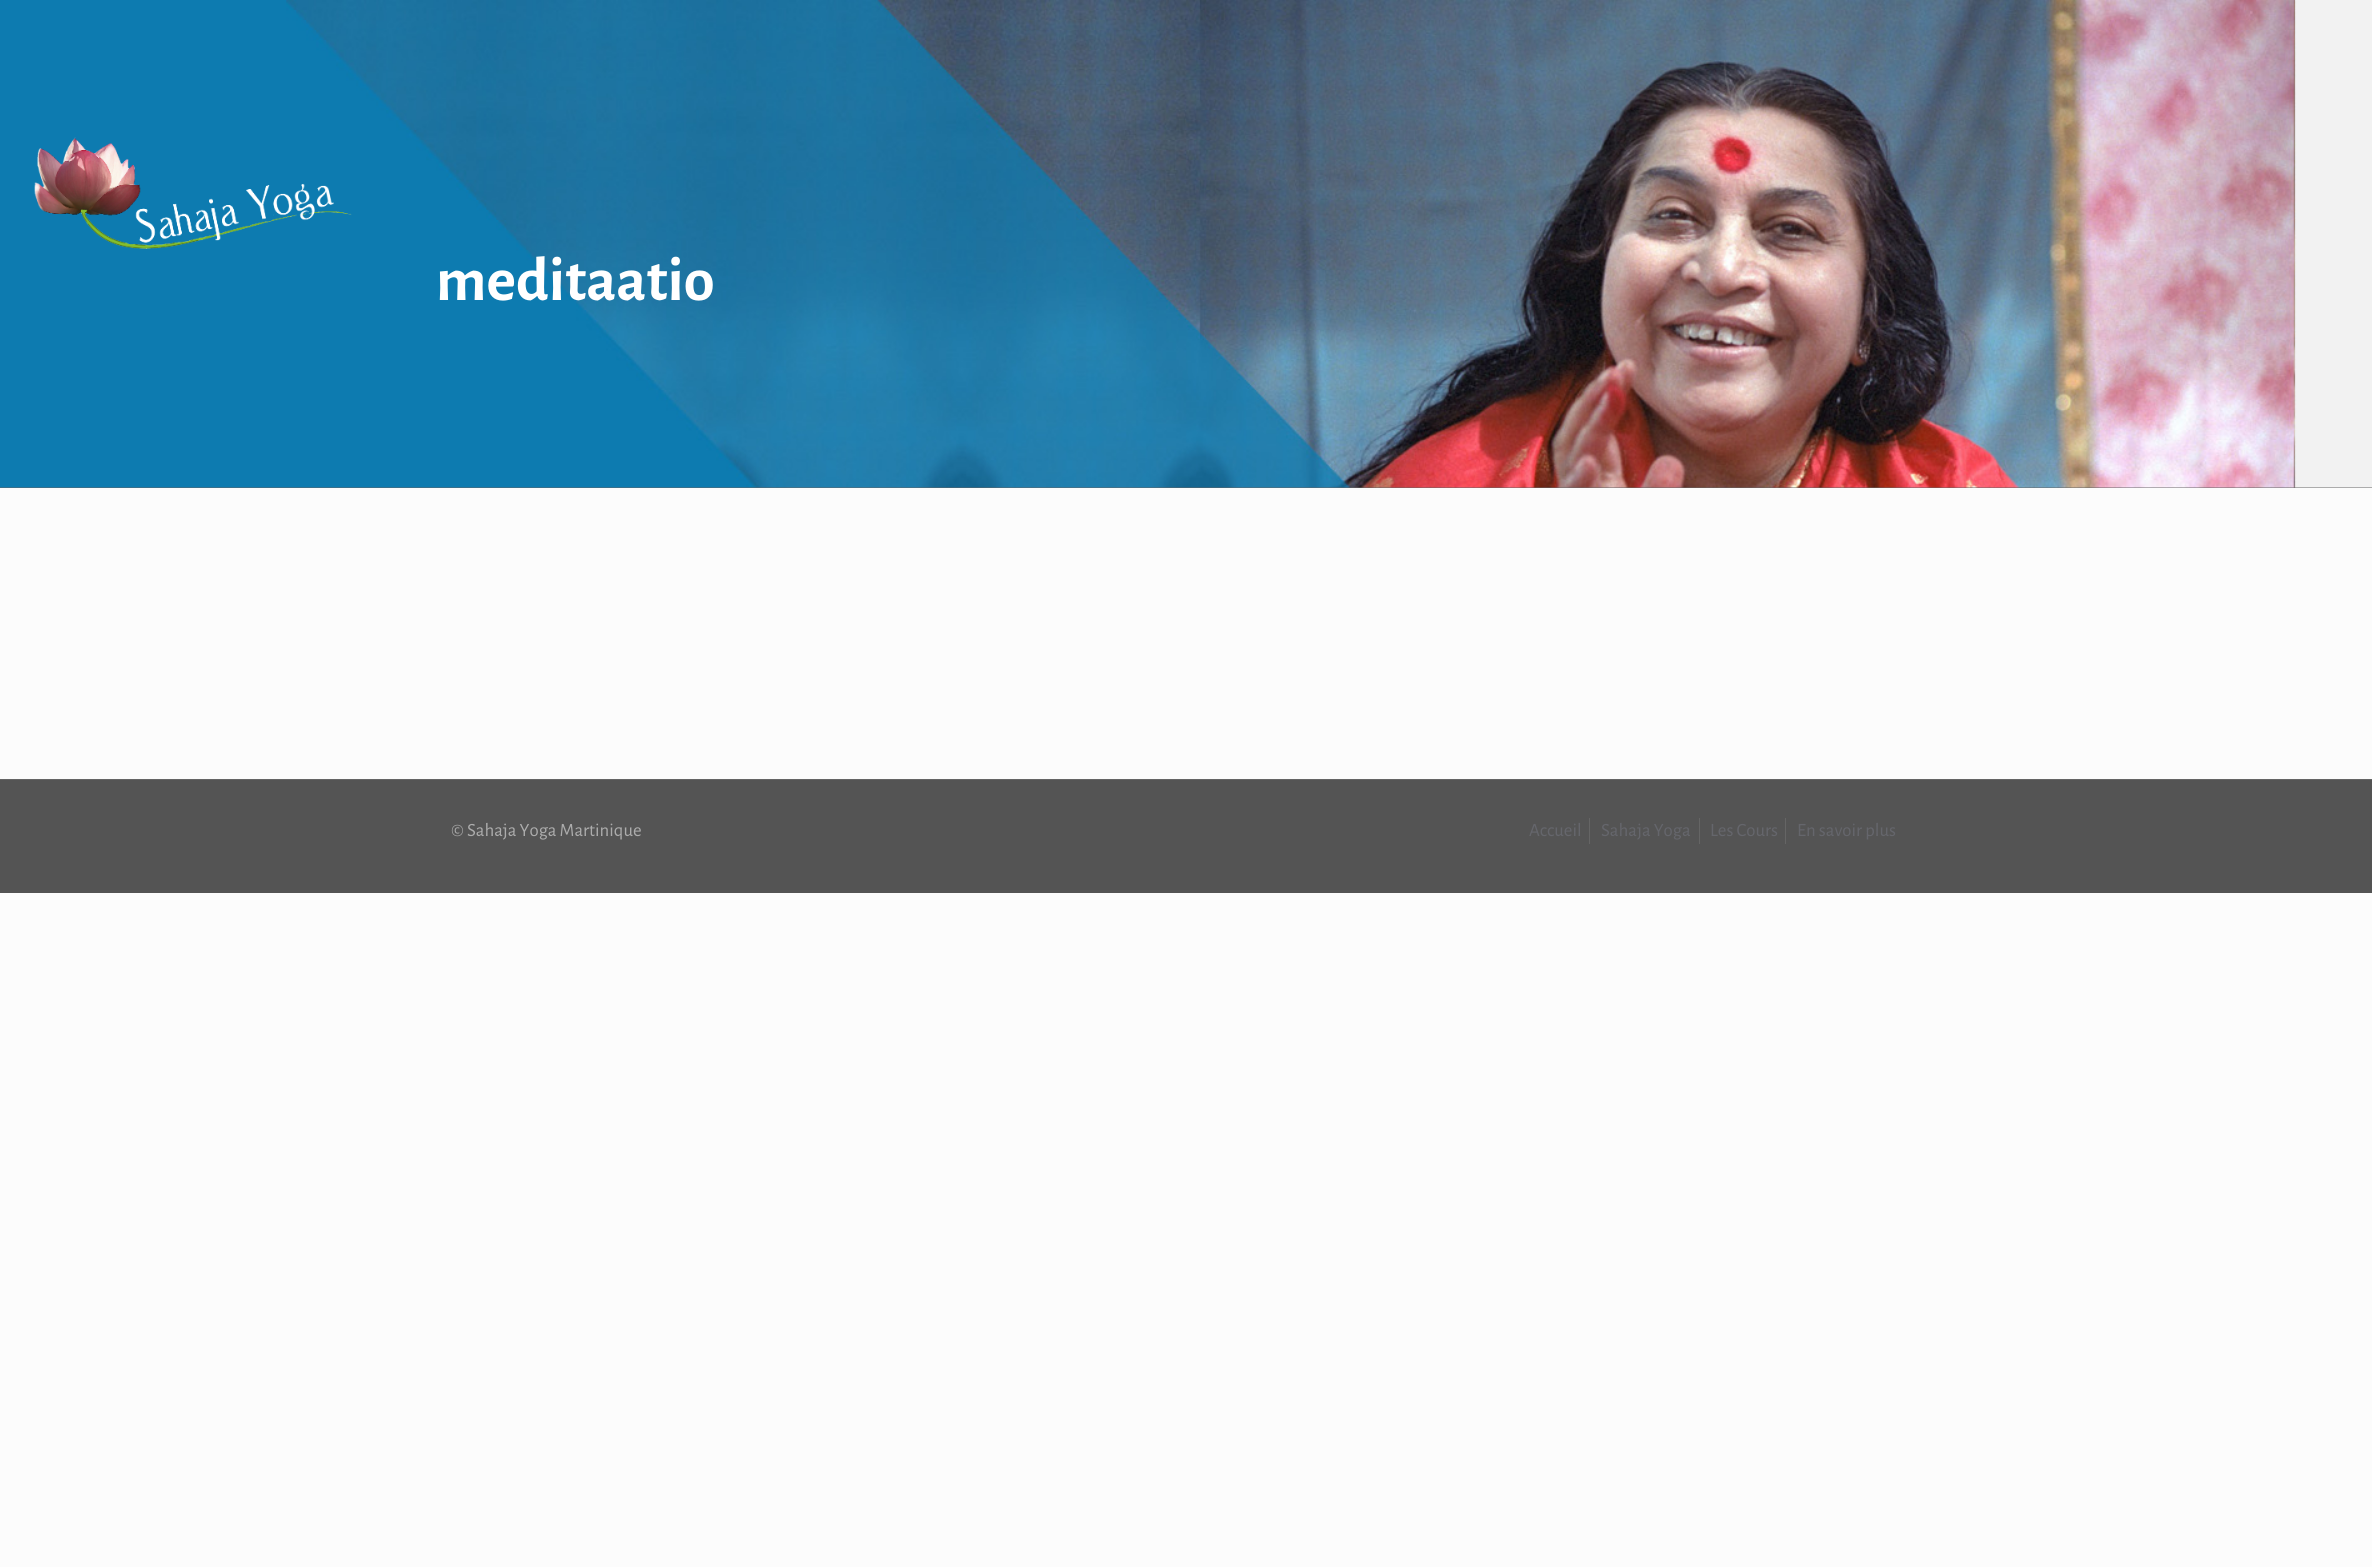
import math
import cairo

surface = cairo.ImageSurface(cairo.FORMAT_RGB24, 2372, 1567)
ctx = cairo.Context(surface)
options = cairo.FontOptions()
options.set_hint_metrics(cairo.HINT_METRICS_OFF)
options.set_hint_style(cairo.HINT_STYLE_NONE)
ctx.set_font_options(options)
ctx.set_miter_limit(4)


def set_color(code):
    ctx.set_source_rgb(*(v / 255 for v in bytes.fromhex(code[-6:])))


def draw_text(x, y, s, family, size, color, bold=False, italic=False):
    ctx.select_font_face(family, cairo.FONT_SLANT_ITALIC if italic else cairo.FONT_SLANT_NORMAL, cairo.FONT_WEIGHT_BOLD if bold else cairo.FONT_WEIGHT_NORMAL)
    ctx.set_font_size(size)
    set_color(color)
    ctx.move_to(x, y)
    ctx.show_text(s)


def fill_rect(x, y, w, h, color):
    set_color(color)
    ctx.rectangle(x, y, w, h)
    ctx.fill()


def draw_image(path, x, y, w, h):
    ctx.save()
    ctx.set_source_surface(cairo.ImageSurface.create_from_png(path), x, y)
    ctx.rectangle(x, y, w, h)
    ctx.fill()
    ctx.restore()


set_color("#fcfcfc")
ctx.paint()
fill_rect(0, 487, 2372, 1, "#666666")
draw_image("assets/img1.png", 0, 0, 2372, 488)
draw_image("assets/img2.png", 34, 137, 318, 112)
draw_text(436, 300, "meditaatio", "Alegreya Sans", 62.5, "#ffffff", bold=True)
fill_rect(0, 780, 2372, 113, "#545454")
fill_rect(0, 779, 2372, 1, "#656565")
draw_text(451, 836, "© Sahaja Yoga Martinique", "Alegreya Sans", 18.75, "#acacac")
fill_rect(1589, 818, 1, 26, "#656565")
draw_text(1529, 836, "Accueil", "Alegreya Sans", 18.75, "#65666c")
fill_rect(1699, 818, 1, 26, "#656565")
draw_text(1601, 836, "Sahaja Yoga", "Alegreya Sans", 18.75, "#65666c")
fill_rect(1785, 818, 1, 26, "#656565")
draw_text(1710, 836, "Les Cours", "Alegreya Sans", 18.75, "#65666c")
draw_text(1797, 836, "En savoir plus", "Alegreya Sans", 18.75, "#65666c")
surface.write_to_png("output.png")
